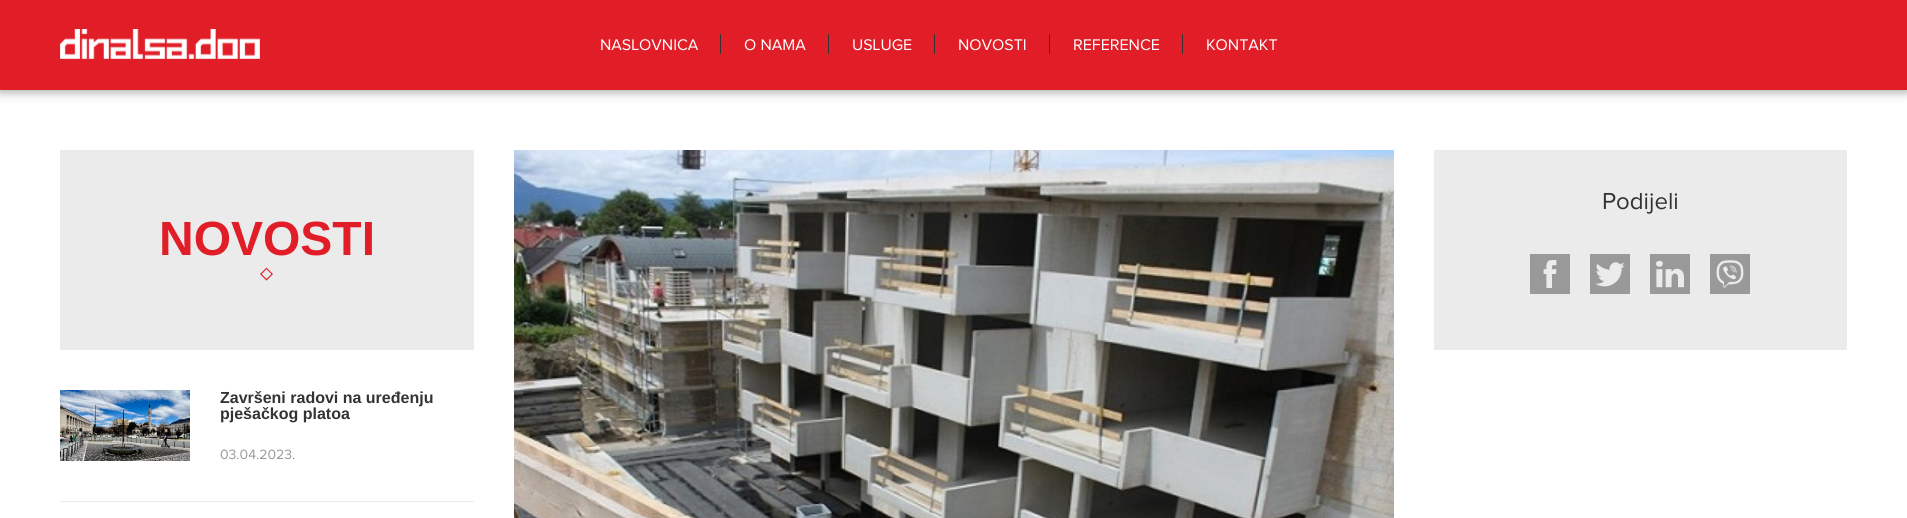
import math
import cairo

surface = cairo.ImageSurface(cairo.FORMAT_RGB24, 1907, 518)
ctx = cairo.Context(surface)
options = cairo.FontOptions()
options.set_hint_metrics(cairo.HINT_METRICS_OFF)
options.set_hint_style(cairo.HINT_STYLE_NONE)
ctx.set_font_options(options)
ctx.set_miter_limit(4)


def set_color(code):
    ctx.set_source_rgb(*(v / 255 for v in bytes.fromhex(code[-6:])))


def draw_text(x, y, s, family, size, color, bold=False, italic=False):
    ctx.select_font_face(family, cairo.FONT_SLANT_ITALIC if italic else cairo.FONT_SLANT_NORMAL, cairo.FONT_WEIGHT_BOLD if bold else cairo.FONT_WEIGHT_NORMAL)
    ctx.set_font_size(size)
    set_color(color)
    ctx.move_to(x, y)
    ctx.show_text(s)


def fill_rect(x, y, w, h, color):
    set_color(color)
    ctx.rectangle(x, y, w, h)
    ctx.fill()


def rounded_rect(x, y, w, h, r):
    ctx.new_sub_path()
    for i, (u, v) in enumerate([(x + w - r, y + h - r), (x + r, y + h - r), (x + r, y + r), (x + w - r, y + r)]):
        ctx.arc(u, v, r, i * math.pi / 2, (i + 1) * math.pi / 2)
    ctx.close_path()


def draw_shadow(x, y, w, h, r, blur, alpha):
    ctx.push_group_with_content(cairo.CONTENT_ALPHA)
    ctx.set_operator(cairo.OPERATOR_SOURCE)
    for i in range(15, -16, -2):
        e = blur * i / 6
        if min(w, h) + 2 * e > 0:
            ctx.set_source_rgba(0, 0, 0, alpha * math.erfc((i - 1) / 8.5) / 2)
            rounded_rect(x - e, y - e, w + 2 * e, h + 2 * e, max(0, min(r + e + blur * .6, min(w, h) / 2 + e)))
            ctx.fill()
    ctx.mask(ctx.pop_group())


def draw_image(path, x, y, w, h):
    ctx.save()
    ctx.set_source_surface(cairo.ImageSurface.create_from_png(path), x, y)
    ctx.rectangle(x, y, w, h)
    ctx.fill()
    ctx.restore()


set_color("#ffffff")
ctx.paint()
set_color("#000000")
draw_shadow(0, 2, 1907, 90, 0, 5, 0.35)
fill_rect(0, 0, 1907, 90, "#e11e28")
draw_image("assets/img1.png", 60, 29, 200, 30)
draw_text(600, 50, "NASLOVNICA", "Proxima Nova", 16, "#ffffff")
fill_rect(720, 34, 1, 20, "#333333")
draw_text(744, 50, "O NAMA", "Proxima Nova", 16, "#ffffff")
fill_rect(828, 34, 1, 20, "#333333")
draw_text(852, 50, "USLUGE", "Proxima Nova", 16, "#ffffff")
fill_rect(934, 34, 1, 20, "#333333")
draw_text(958, 50, "NOVOSTI", "Proxima Nova", 16, "#ffffff")
fill_rect(1049, 34, 1, 20, "#333333")
draw_text(1073, 50, "REFERENCE", "Proxima Nova", 16, "#ffffff")
fill_rect(1182, 34, 1, 20, "#333333")
draw_text(1206, 50, "KONTAKT", "Proxima Nova", 16, "#ffffff")
draw_image("assets/img2.png", 514, 150, 880, 368)
fill_rect(1434, 150, 413, 200, "#ebebeb")
draw_text(1602, 209, "Podijeli", "Proxima Nova", 24, "#333333")
draw_image("assets/img3.png", 1530, 254, 40, 40)
draw_image("assets/img4.png", 1590, 254, 40, 40)
draw_image("assets/img5.png", 1650, 254, 40, 40)
draw_image("assets/img6.png", 1710, 254, 40, 40)
fill_rect(60, 150, 414, 200, "#ebebeb")
draw_text(159, 255, "NOVOSTI", "Liberation Sans", 48, "#e11e28", bold=True)
draw_image("assets/img7.png", 260, 267, 13, 14)
fill_rect(60, 501, 414, 1, "#ebebeb")
draw_image("assets/img8.png", 60, 390, 130, 71)
draw_text(220, 403, "Završeni radovi na uređenju", "Liberation Sans", 16, "#333333", bold=True)
draw_text(220, 419, "pješačkog platoa", "Liberation Sans", 16, "#333333", bold=True)
draw_text(220, 459, "03.04.2023.", "Proxima Nova", 14, "#999999")
surface.write_to_png("output.png")
